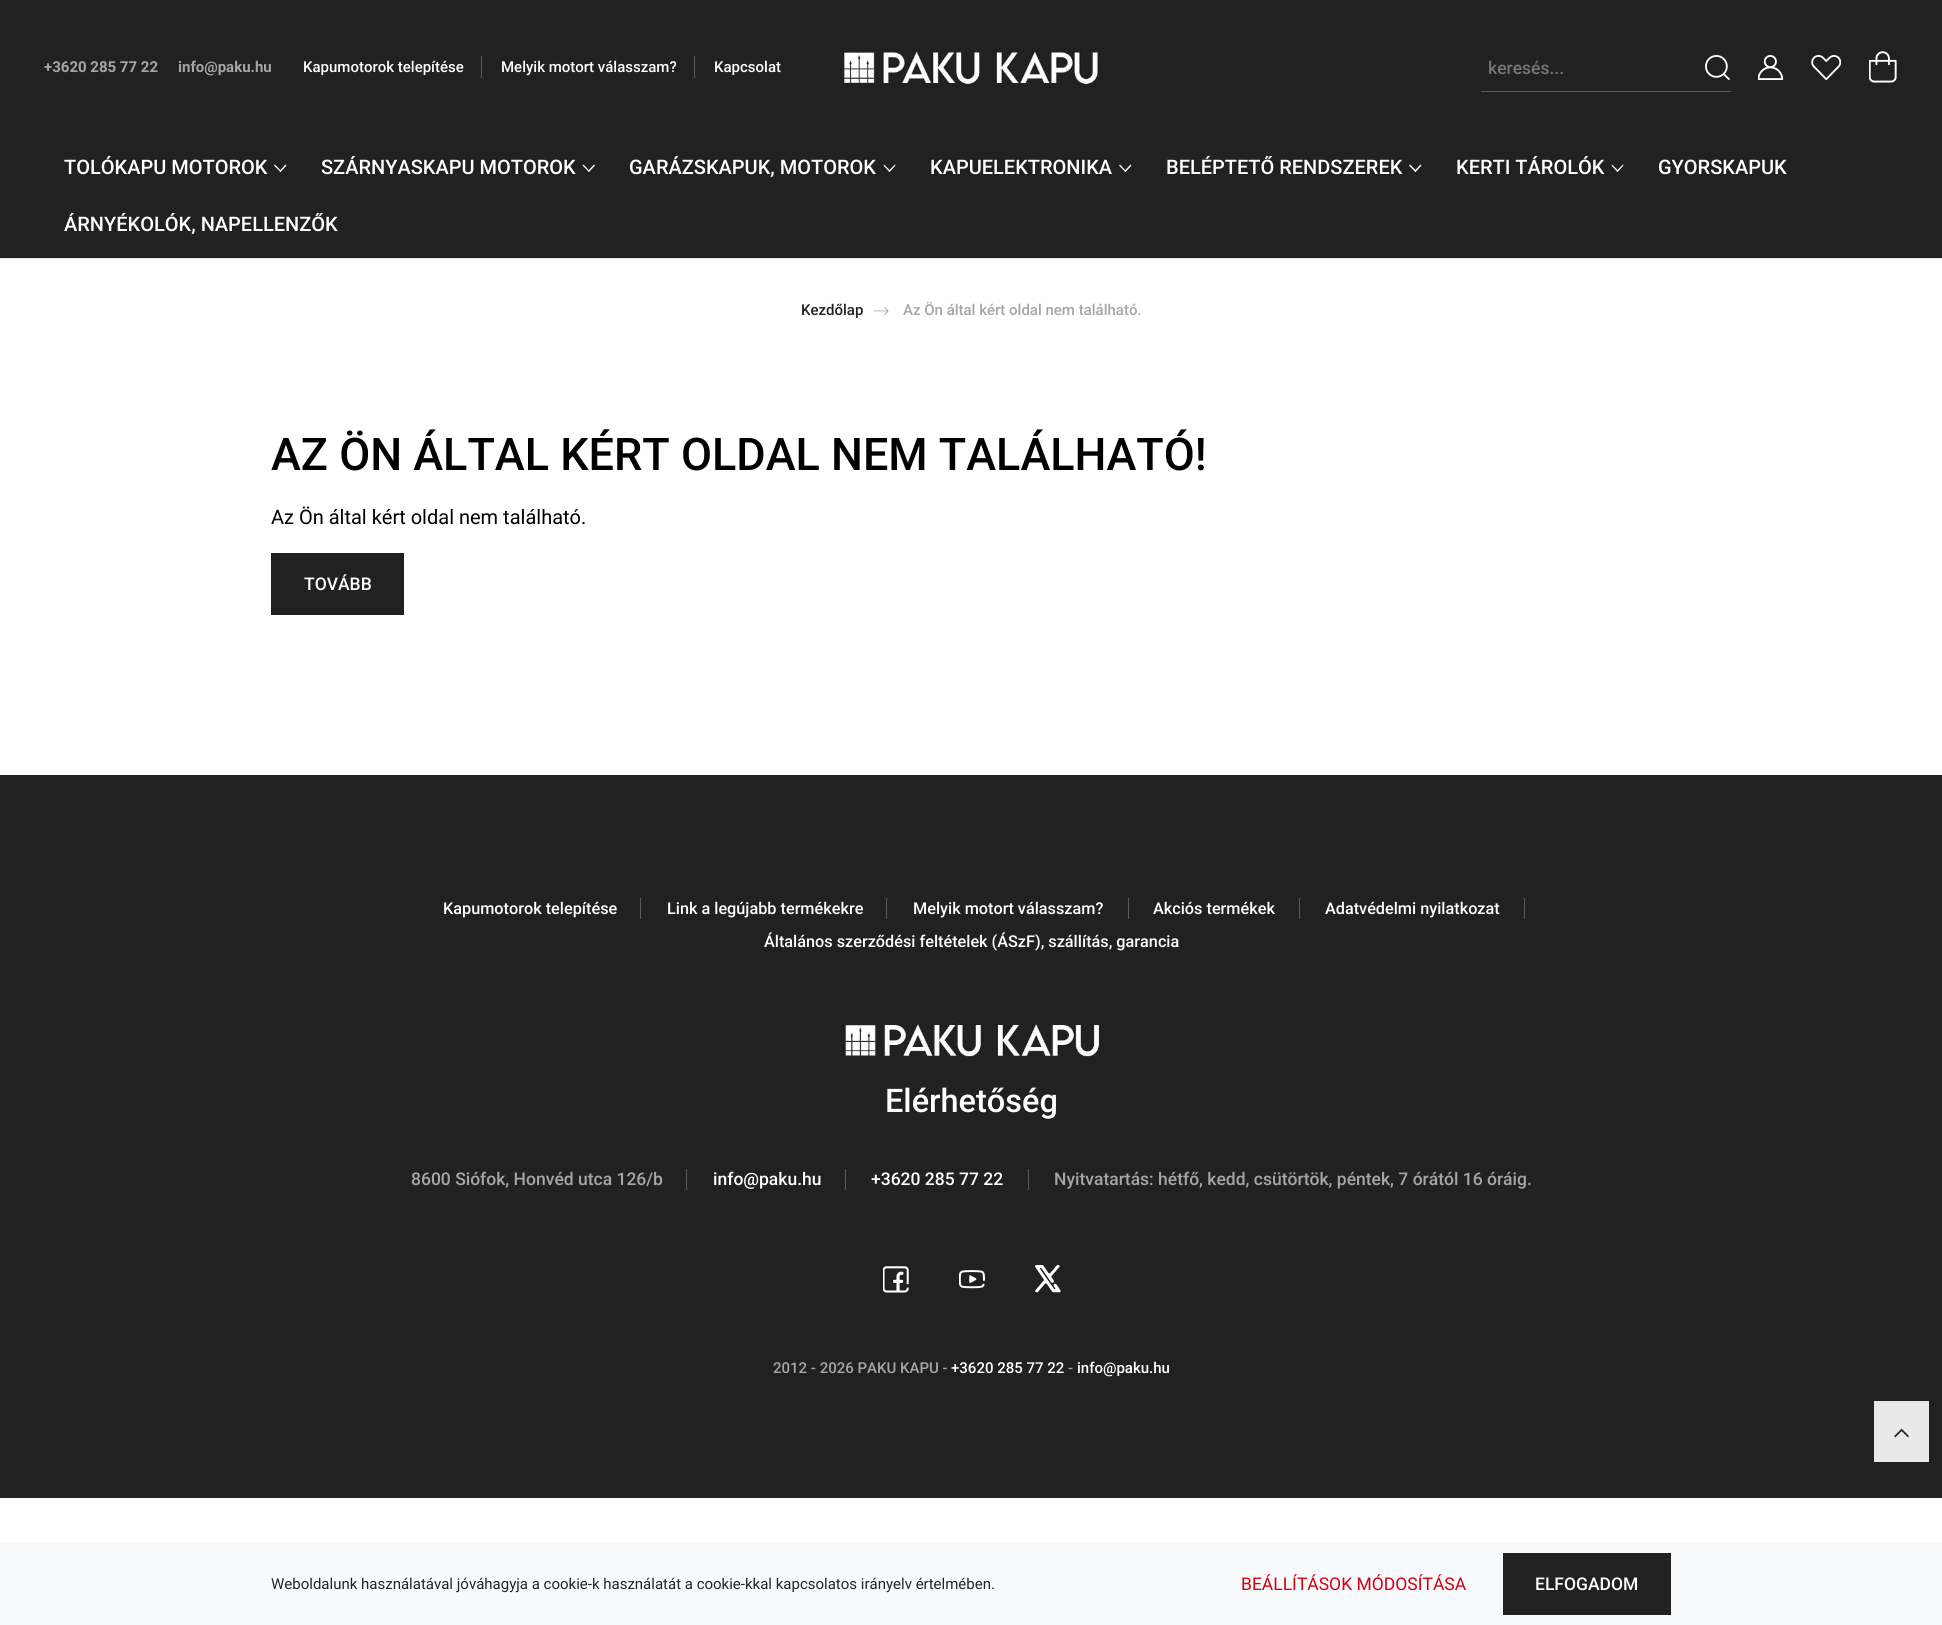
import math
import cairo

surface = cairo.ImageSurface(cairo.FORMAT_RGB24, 1942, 1625)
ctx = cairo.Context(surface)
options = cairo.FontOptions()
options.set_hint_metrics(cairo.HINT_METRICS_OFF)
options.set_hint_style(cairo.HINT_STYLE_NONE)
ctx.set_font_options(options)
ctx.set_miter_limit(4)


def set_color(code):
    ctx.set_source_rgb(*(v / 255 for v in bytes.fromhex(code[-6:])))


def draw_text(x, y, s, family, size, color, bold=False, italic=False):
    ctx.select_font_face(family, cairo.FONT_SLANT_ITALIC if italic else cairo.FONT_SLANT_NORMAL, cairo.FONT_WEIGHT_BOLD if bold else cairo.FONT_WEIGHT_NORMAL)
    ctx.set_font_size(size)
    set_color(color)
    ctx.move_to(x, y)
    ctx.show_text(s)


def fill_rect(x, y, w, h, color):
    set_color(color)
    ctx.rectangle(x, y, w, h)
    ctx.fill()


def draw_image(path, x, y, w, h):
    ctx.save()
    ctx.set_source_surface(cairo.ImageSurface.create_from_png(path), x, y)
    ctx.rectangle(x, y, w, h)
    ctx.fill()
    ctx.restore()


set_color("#ffffff")
ctx.paint()
fill_rect(0, 0, 1942, 258, "#212121")
draw_text(44, 72, "+3620 285 77 22", "Roboto", 15, "#a6a6a6", bold=True)
draw_text(178, 72, "info@paku.hu", "Roboto", 15, "#a6a6a6", bold=True)
draw_text(303, 72, "Kapumotorok telepítése", "Roboto Medium", 15, "#ffffff")
fill_rect(481, 56, 1, 22, "#5c5c5c")
draw_text(501, 72, "Melyik motort válasszam?", "Roboto Medium", 15, "#ffffff")
fill_rect(694, 56, 1, 22, "#5c5c5c")
draw_text(714, 72, "Kapcsolat", "Roboto Medium", 15, "#ffffff")
draw_image("assets/img1.png", 840, 49, 260, 35)
fill_rect(1481, 91, 250, 1, "#5c5c5c")
draw_text(1488, 74, "keresés...", "Roboto Medium", 17.5, "#767676")
draw_image("assets/img2.png", 1705, 55, 25, 25)
draw_image("assets/img3.png", 1758, 55, 26, 25)
draw_image("assets/img4.png", 1811, 55, 30, 25)
draw_image("assets/img5.png", 1869, 51, 28, 32)
draw_text(64, 174, "TOLÓKAPU MOTOROK", "Roboto Medium", 20, "#ffffff")
ctx.new_path()
ctx.move_to(285.5, 164.5)
ctx.line_to(286.5, 165.5)
ctx.line_to(280.5, 172)
ctx.line_to(279.5, 171)
ctx.close_path()
ctx.fill()
ctx.new_path()
ctx.move_to(275, 164.5)
ctx.line_to(281, 171)
ctx.line_to(280.5, 172)
ctx.line_to(274, 165.5)
ctx.close_path()
ctx.fill()
draw_text(321, 174, "SZÁRNYASKAPU MOTOROK", "Roboto Medium", 20, "#ffffff")
ctx.new_path()
ctx.move_to(594, 164.5)
ctx.line_to(595, 165.5)
ctx.line_to(589, 172)
ctx.line_to(588, 171)
ctx.close_path()
ctx.fill()
ctx.new_path()
ctx.move_to(583.5, 164.5)
ctx.line_to(589.5, 171)
ctx.line_to(589, 172)
ctx.line_to(582.5, 165.5)
ctx.close_path()
ctx.fill()
draw_text(629, 174, "GARÁZSKAPUK, MOTOROK", "Roboto Medium", 20, "#ffffff")
ctx.new_path()
ctx.move_to(895, 164.5)
ctx.line_to(895.5, 165.5)
ctx.line_to(889.5, 172)
ctx.line_to(888.5, 171)
ctx.close_path()
ctx.fill()
ctx.new_path()
ctx.move_to(884, 164.5)
ctx.line_to(890.5, 171)
ctx.line_to(889.5, 172)
ctx.line_to(883.5, 165.5)
ctx.close_path()
ctx.fill()
draw_text(930, 174, "KAPUELEKTRONIKA", "Roboto Medium", 20, "#ffffff")
ctx.new_path()
ctx.move_to(1130.5, 164.5)
ctx.line_to(1131.5, 165.5)
ctx.line_to(1125.5, 172)
ctx.line_to(1124.5, 171)
ctx.close_path()
ctx.fill()
ctx.new_path()
ctx.move_to(1120, 164.5)
ctx.line_to(1126, 171)
ctx.line_to(1125.5, 172)
ctx.line_to(1119, 165.5)
ctx.close_path()
ctx.fill()
draw_text(1166, 174, "BELÉPTETŐ RENDSZEREK", "Roboto Medium", 20, "#ffffff")
ctx.new_path()
ctx.move_to(1420.5, 164.5)
ctx.line_to(1421.5, 165.5)
ctx.line_to(1415.5, 172)
ctx.line_to(1414.5, 171)
ctx.close_path()
ctx.fill()
ctx.new_path()
ctx.move_to(1410, 164.5)
ctx.line_to(1416.5, 171)
ctx.line_to(1415.5, 172)
ctx.line_to(1409, 165.5)
ctx.close_path()
ctx.fill()
draw_text(1456, 174, "KERTI TÁROLÓK", "Roboto Medium", 20, "#ffffff")
ctx.new_path()
ctx.move_to(1623, 164.5)
ctx.line_to(1623.5, 165.5)
ctx.line_to(1617.5, 172)
ctx.line_to(1616.5, 171)
ctx.close_path()
ctx.fill()
ctx.new_path()
ctx.move_to(1612, 164.5)
ctx.line_to(1618.5, 171)
ctx.line_to(1617.5, 172)
ctx.line_to(1611.5, 165.5)
ctx.close_path()
ctx.fill()
draw_text(1658, 174, "GYORSKAPUK", "Roboto Medium", 20, "#ffffff")
draw_text(64, 231, "ÁRNYÉKOLÓK, NAPELLENZŐK", "Roboto Medium", 20, "#ffffff")
fill_rect(0, 258, 1942, 1, "#e3e3e3")
draw_text(801, 315, "Kezdőlap", "Roboto Medium", 15, "#212121")
draw_image("assets/img6.png", 874, 307, 15, 8)
draw_text(903, 315, "Az Ön által kért oldal nem található.", "Roboto Medium", 15, "#a6a6a6")
draw_text(271, 470, "AZ ÖN ÁLTAL KÉRT OLDAL NEM TALÁLHATÓ!", "Roboto Medium", 45, "#000000")
draw_text(271, 524, "Az Ön által kért oldal nem található.", "Roboto", 20, "#000000")
fill_rect(271, 553, 133, 62, "#212121")
draw_text(304, 590, "TOVÁBB", "Roboto Medium", 17.5, "#ffffff")
fill_rect(0, 775, 1942, 723, "#212121")
draw_text(443, 914, "Kapumotorok telepítése", "Roboto Medium", 16.25, "#ffffff")
fill_rect(640, 898, 1, 21, "#5c5c5c")
draw_text(667, 914, "Link a legújabb termékekre", "Roboto Medium", 16.25, "#ffffff")
fill_rect(886, 898, 1, 21, "#5c5c5c")
draw_text(913, 914, "Melyik motort válasszam?", "Roboto Medium", 16.25, "#ffffff")
fill_rect(1128, 898, 1, 21, "#5c5c5c")
draw_text(1153, 914, "Akciós termékek", "Roboto Medium", 16.25, "#ffffff")
fill_rect(1299, 898, 1, 21, "#5c5c5c")
draw_text(1325, 914, "Adatvédelmi nyilatkozat", "Roboto Medium", 16.25, "#ffffff")
fill_rect(1524, 898, 1, 21, "#5c5c5c")
draw_text(764, 947, "Általános szerződési feltételek (ÁSzF), szállítás, garancia", "Roboto Medium", 16.25, "#ffffff")
draw_image("assets/img7.png", 841, 1021, 260, 36)
draw_text(885, 1112, "Elérhetőség", "Roboto Medium", 32.5, "#ffffff")
draw_text(411, 1185, "8600 Siófok, Honvéd utca 126/b", "Roboto Medium", 17.5, "#a6a6a6")
fill_rect(686, 1169, 1, 21, "#5c5c5c")
draw_text(713, 1185, "info@paku.hu", "Roboto Medium", 17.5, "#ffffff")
fill_rect(845, 1169, 1, 21, "#5c5c5c")
draw_text(871, 1185, "+3620 285 77 22", "Roboto Medium", 17.5, "#ffffff")
fill_rect(1028, 1169, 1, 21, "#5c5c5c")
draw_text(1054, 1185, "Nyitvatartás: hétfő, kedd, csütörtök, péntek, 7 órától 16 óráig.", "Roboto Medium", 17.5, "#a6a6a6")
draw_image("assets/img8.png", 883, 1266, 26, 27)
draw_image("assets/img9.png", 959, 1270, 26, 19)
draw_image("assets/img10.png", 1035, 1265, 26, 28)
draw_text(773, 1373, "2012 - 2026 PAKU KAPU -", "Roboto Medium", 15, "#a6a6a6")
draw_text(951, 1373, "+3620 285 77 22", "Roboto Medium", 15, "#ffffff")
draw_text(1068, 1373, "-", "Roboto Medium", 15, "#a6a6a6")
draw_text(1077, 1373, "info@paku.hu", "Roboto Medium", 15, "#ffffff")
fill_rect(1874, 1401, 55, 61, "#e9e9e9")
draw_image("assets/img11.png", 1894, 1428, 15, 10)
fill_rect(0, 1543, 1942, 82, "#f9fafb")
draw_text(271, 1589, "Weboldalunk használatával jóváhagyja a cookie-k használatát a cookie-kkal kapcsolatos irányelv értelmében.", "Roboto", 15, "#212529")
draw_text(1241, 1590, "BEÁLLÍTÁSOK MÓDOSÍTÁSA", "Roboto", 17.5, "#d10011")
fill_rect(1503, 1553, 168, 62, "#212121")
draw_text(1535, 1590, "ELFOGADOM", "Roboto Medium", 17.5, "#ffffff")
surface.write_to_png("output.png")
